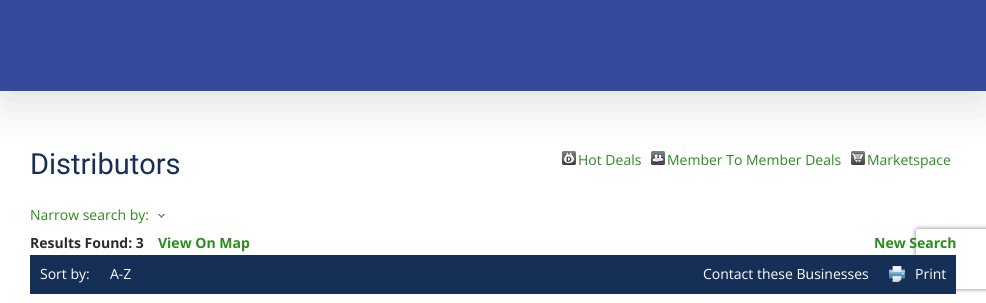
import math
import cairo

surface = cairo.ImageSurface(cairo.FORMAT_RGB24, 986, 303)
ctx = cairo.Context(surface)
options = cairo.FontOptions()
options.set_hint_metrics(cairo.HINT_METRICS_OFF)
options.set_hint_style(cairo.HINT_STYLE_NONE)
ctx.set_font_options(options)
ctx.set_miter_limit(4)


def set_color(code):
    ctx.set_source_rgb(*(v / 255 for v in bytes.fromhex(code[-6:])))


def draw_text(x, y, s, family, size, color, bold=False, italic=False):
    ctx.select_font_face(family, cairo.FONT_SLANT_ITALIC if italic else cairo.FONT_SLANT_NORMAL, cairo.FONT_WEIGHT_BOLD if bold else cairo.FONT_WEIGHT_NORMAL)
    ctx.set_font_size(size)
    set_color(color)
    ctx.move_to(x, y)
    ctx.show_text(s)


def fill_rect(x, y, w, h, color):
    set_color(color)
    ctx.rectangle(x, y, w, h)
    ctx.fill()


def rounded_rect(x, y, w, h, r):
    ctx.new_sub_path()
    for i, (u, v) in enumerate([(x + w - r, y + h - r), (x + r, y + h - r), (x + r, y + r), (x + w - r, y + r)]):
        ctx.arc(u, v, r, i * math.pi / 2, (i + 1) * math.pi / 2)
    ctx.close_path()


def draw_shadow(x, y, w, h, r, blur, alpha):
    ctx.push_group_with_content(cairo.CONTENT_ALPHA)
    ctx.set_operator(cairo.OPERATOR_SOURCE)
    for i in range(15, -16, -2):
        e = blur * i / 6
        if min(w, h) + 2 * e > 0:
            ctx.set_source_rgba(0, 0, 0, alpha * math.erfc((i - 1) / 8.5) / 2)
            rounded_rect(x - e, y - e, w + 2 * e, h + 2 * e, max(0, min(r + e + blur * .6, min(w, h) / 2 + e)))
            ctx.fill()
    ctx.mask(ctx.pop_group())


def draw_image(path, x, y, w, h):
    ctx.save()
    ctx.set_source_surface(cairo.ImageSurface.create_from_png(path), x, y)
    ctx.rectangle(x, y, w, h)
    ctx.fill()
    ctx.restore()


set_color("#ffffff")
ctx.paint()
draw_image("assets/img1.png", 562, 151, 14, 14)
draw_image("assets/img2.png", 651, 151, 14, 14)
draw_image("assets/img3.png", 851, 151, 14, 14)
set_color("#000000")
draw_shadow(2, 12, 982, 87, 0, 25, 0.14)
fill_rect(0, 0, 986, 91, "#35499b")
draw_text(30, 174, "Distributors", "Roboto", 29, "#162f57")
draw_text(578, 165, "Hot Deals", "Open Sans", 14, "#298c1c")
draw_text(667, 165, "Member To Member Deals", "Open Sans", 14, "#298c1c")
draw_text(867, 165, "Marketspace", "Open Sans", 14, "#298c1c")
draw_text(30, 220, "Narrow search by:", "Open Sans", 14, "#298c1c")
draw_image("assets/img4.png", 158, 214, 7, 4)
draw_text(30, 248, "Results Found: 3", "Open Sans", 14, "#2d2d2d", bold=True)
draw_text(158, 248, "View On Map", "Open Sans", 14, "#298c1c", bold=True)
ctx.save()
ctx.set_fill_rule(cairo.FILL_RULE_EVEN_ODD)
ctx.new_path()
ctx.move_to(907, 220)
ctx.line_to(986, 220)
ctx.line_to(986, 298)
ctx.line_to(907, 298)
ctx.close_path()
ctx.move_to(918, 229)
ctx.line_to(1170, 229)
ctx.curve_to(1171, 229, 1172, 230, 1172, 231)
ctx.line_to(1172, 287)
ctx.curve_to(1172, 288, 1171, 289, 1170, 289)
ctx.line_to(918, 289)
ctx.curve_to(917, 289, 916, 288, 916, 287)
ctx.line_to(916, 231)
ctx.curve_to(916, 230, 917, 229, 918, 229)
ctx.close_path()
ctx.clip()
set_color("#808080")
draw_shadow(916, 229, 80, 60, 2, 2.5, 1)
ctx.restore()
draw_text(874, 248, "New Search", "Open Sans", 14, "#298c1c", bold=True)
fill_rect(30, 255, 926, 39, "#162f57")
draw_text(40, 279, "Sort by:", "Open Sans", 14, "#ffffff")
draw_text(110, 279, "A-Z", "Open Sans", 14, "#ffffff")
draw_text(703, 279, "Contact these Businesses", "Open Sans", 14, "#ffffff")
draw_image("assets/img5.png", 889, 266, 16, 16)
draw_text(915, 279, "Print", "Open Sans", 14, "#ffffff")
surface.write_to_png("output.png")
